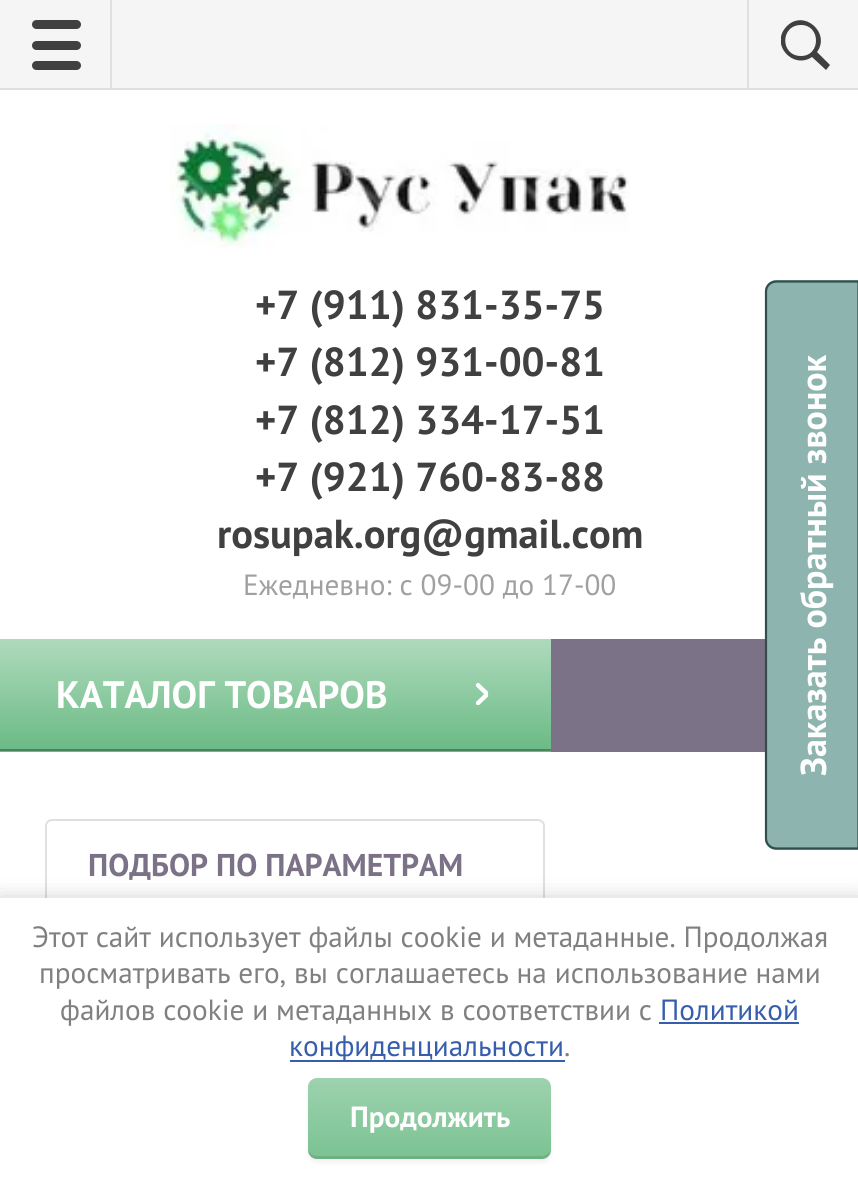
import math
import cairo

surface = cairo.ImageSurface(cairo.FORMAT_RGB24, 858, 1181)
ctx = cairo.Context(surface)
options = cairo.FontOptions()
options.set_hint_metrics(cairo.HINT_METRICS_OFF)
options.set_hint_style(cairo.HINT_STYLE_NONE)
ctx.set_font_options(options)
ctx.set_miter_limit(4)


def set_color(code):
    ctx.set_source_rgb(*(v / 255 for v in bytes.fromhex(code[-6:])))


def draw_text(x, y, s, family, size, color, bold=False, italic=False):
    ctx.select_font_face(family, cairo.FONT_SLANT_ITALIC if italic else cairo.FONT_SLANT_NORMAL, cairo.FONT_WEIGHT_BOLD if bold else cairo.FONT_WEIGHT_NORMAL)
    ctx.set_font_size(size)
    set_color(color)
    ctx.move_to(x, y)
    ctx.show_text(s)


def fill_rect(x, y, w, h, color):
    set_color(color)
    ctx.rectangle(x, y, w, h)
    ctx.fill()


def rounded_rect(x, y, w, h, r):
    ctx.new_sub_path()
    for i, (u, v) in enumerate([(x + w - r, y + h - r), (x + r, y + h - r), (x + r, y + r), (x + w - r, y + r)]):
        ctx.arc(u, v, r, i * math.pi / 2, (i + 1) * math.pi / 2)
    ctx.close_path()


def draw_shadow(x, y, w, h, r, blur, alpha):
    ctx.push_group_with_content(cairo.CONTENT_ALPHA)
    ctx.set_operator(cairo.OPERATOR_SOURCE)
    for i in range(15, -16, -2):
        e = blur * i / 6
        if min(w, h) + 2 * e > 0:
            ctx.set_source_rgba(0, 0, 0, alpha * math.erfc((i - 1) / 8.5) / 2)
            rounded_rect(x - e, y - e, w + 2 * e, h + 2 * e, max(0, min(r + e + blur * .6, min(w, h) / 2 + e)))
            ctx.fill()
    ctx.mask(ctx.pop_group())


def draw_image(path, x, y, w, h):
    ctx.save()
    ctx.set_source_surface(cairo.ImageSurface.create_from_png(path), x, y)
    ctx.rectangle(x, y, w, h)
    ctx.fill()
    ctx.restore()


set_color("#ffffff")
ctx.paint()
fill_rect(0, 0, 858, 88, "#f5f5f5")
fill_rect(0, 88, 858, 2, "#e0e0e0")
fill_rect(110, 0, 2, 90, "#e0e0e0")
set_color("#404040")
rounded_rect(32, 20, 49, 9, 4.5)
ctx.fill()
rounded_rect(32, 41, 49, 9, 4.5)
ctx.fill()
rounded_rect(32, 61, 49, 9, 4.5)
ctx.fill()
ctx.save()
ctx.rectangle(781, 20, 49, 50)
ctx.clip()
ctx.set_fill_rule(cairo.FILL_RULE_EVEN_ODD)
ctx.new_path()
ctx.move_to(830, 65)
ctx.line_to(826, 70)
ctx.line_to(812, 57)
ctx.curve_to(793, 70, 769, 44, 787, 26)
ctx.curve_to(804, 9, 831, 33, 817, 52)
ctx.close_path()
ctx.move_to(801, 25)
ctx.curve_to(780, 25, 780, 56, 801, 56)
ctx.curve_to(821, 56, 821, 25, 801, 25)
ctx.close_path()
ctx.fill()
ctx.restore()
fill_rect(747, 0, 2, 90, "#e0e0e0")
draw_image("assets/img1.png", 170, 124, 460, 124)
draw_text(255, 319, "+7 (911) 831-35-75", "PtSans", 40.5, "#404040", bold=True)
draw_text(255, 376, "+7 (812) 931-00-81", "PtSans", 40.5, "#404040", bold=True)
draw_text(255, 434, "+7 (812) 334-17-51", "PtSans", 40.5, "#404040", bold=True)
draw_text(255, 491, "+7 (921) 760-83-88", "PtSans", 40.5, "#404040", bold=True)
draw_text(217, 548, "rosupak.org@gmail.com", "PtSans", 40.5, "#404040", bold=True)
draw_text(243, 595, "Ежедневно: с 09-00 до 17-00", "PtSans", 29.25, "#a0a0a0")
fill_rect(551, 639, 214, 113, "#7c7287")
gradient = cairo.LinearGradient(276, 752, 276, 639)
gradient.add_color_stop_rgba(0, 0.416, 0.729, 0.518, 1)
gradient.add_color_stop_rgba(1, 0.686, 0.855, 0.741, 1)
ctx.set_source(gradient)
ctx.rectangle(0, 639, 551, 113)
ctx.fill()
fill_rect(0, 749, 551, 2, "#4b835d")
draw_text(56, 708, "КАТАЛОГ ТОВАРОВ", "PtSans", 38.25, "#ffffff", bold=True)
draw_image("assets/img2.png", 475, 683, 14, 22)
rounded_rect(46, 820, 498, 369, 6)
set_color("#e0e0e0")
ctx.stroke()
draw_text(88, 876, "ПОДБОР ПО ПАРАМЕТРАМ", "PtSans", 31.5, "#7c7287", bold=True)
set_color("#8eb4b0")
ctx.new_path()
ctx.move_to(765, 839)
ctx.line_to(765, 291)
ctx.curve_to(765, 285, 770, 280, 776, 280)
ctx.line_to(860, 280)
ctx.line_to(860, 850)
ctx.line_to(776, 850)
ctx.curve_to(770, 850, 765, 845, 765, 839)
ctx.close_path()
ctx.fill()
ctx.new_path()
ctx.move_to(766, 838.5)
ctx.line_to(766, 291.5)
ctx.curve_to(766, 286, 770.5, 281.5, 776.5, 281.5)
ctx.line_to(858.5, 281.5)
ctx.line_to(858.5, 848.5)
ctx.line_to(776.5, 848.5)
ctx.curve_to(770.5, 848.5, 766, 844, 766, 838.5)
ctx.close_path()
set_color("#304e4b")
ctx.set_line_width(2.2)
ctx.stroke()
ctx.save()
ctx.translate(826, 776)
ctx.rotate(-90 * math.pi / 180)
draw_text(0, 0, "Заказать обратный звонок", "PtSans", 36, "#ffffff", bold=True)
ctx.restore()
set_color("#000000")
draw_shadow(0, 900, 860, 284, 0, 11, 0.23)
fill_rect(0, 898, 858, 283, "#ffffff")
draw_text(32, 947, "Этот сайт использует файлы cookie и метаданные. Продолжая", "PtSans", 29.25, "#808080")
draw_text(39, 983, "просматривать его, вы соглашаетесь на использование нами", "PtSans", 29.25, "#808080")
draw_text(60, 1020, "файлов cookie и метаданных в соответствии с", "PtSans", 29.25, "#808080")
draw_text(660, 1020, "Политикой", "PtSans", 29.25, "#375eac")
fill_rect(659, 1022, 140, 2, "#375eac")
fill_rect(290, 1060, 275, 2, "#375eac")
draw_text(289, 1056, "конфиденциальности", "PtSans", 29.25, "#375eac")
draw_text(564, 1056, ".", "PtSans", 29.25, "#808080")
set_color("#000000")
draw_shadow(308, 1082, 243, 81, 9, 2, 0.05)
gradient = cairo.LinearGradient(430, 1159, 430, 1078)
gradient.add_color_stop_rgba(0, 0.482, 0.761, 0.573, 1)
gradient.add_color_stop_rgba(1, 0.616, 0.824, 0.682, 1)
ctx.set_source(gradient)
rounded_rect(308, 1078, 243, 81, 9)
ctx.fill()
ctx.set_source_rgba(0, 0, 0, 0.1)
ctx.new_path()
ctx.move_to(308, 1148)
ctx.line_to(308, 1150)
ctx.curve_to(308, 1155, 312, 1159, 317, 1159)
ctx.line_to(542, 1159)
ctx.curve_to(547, 1159, 551, 1155, 551, 1150)
ctx.line_to(551, 1148)
ctx.curve_to(551, 1152, 547, 1156, 542, 1156)
ctx.line_to(317, 1156)
ctx.curve_to(312, 1156, 308, 1152, 308, 1148)
ctx.close_path()
ctx.fill()
draw_text(350, 1127, "Продолжить", "PtSans", 29.25, "#ffffff", bold=True)
surface.write_to_png("output.png")
